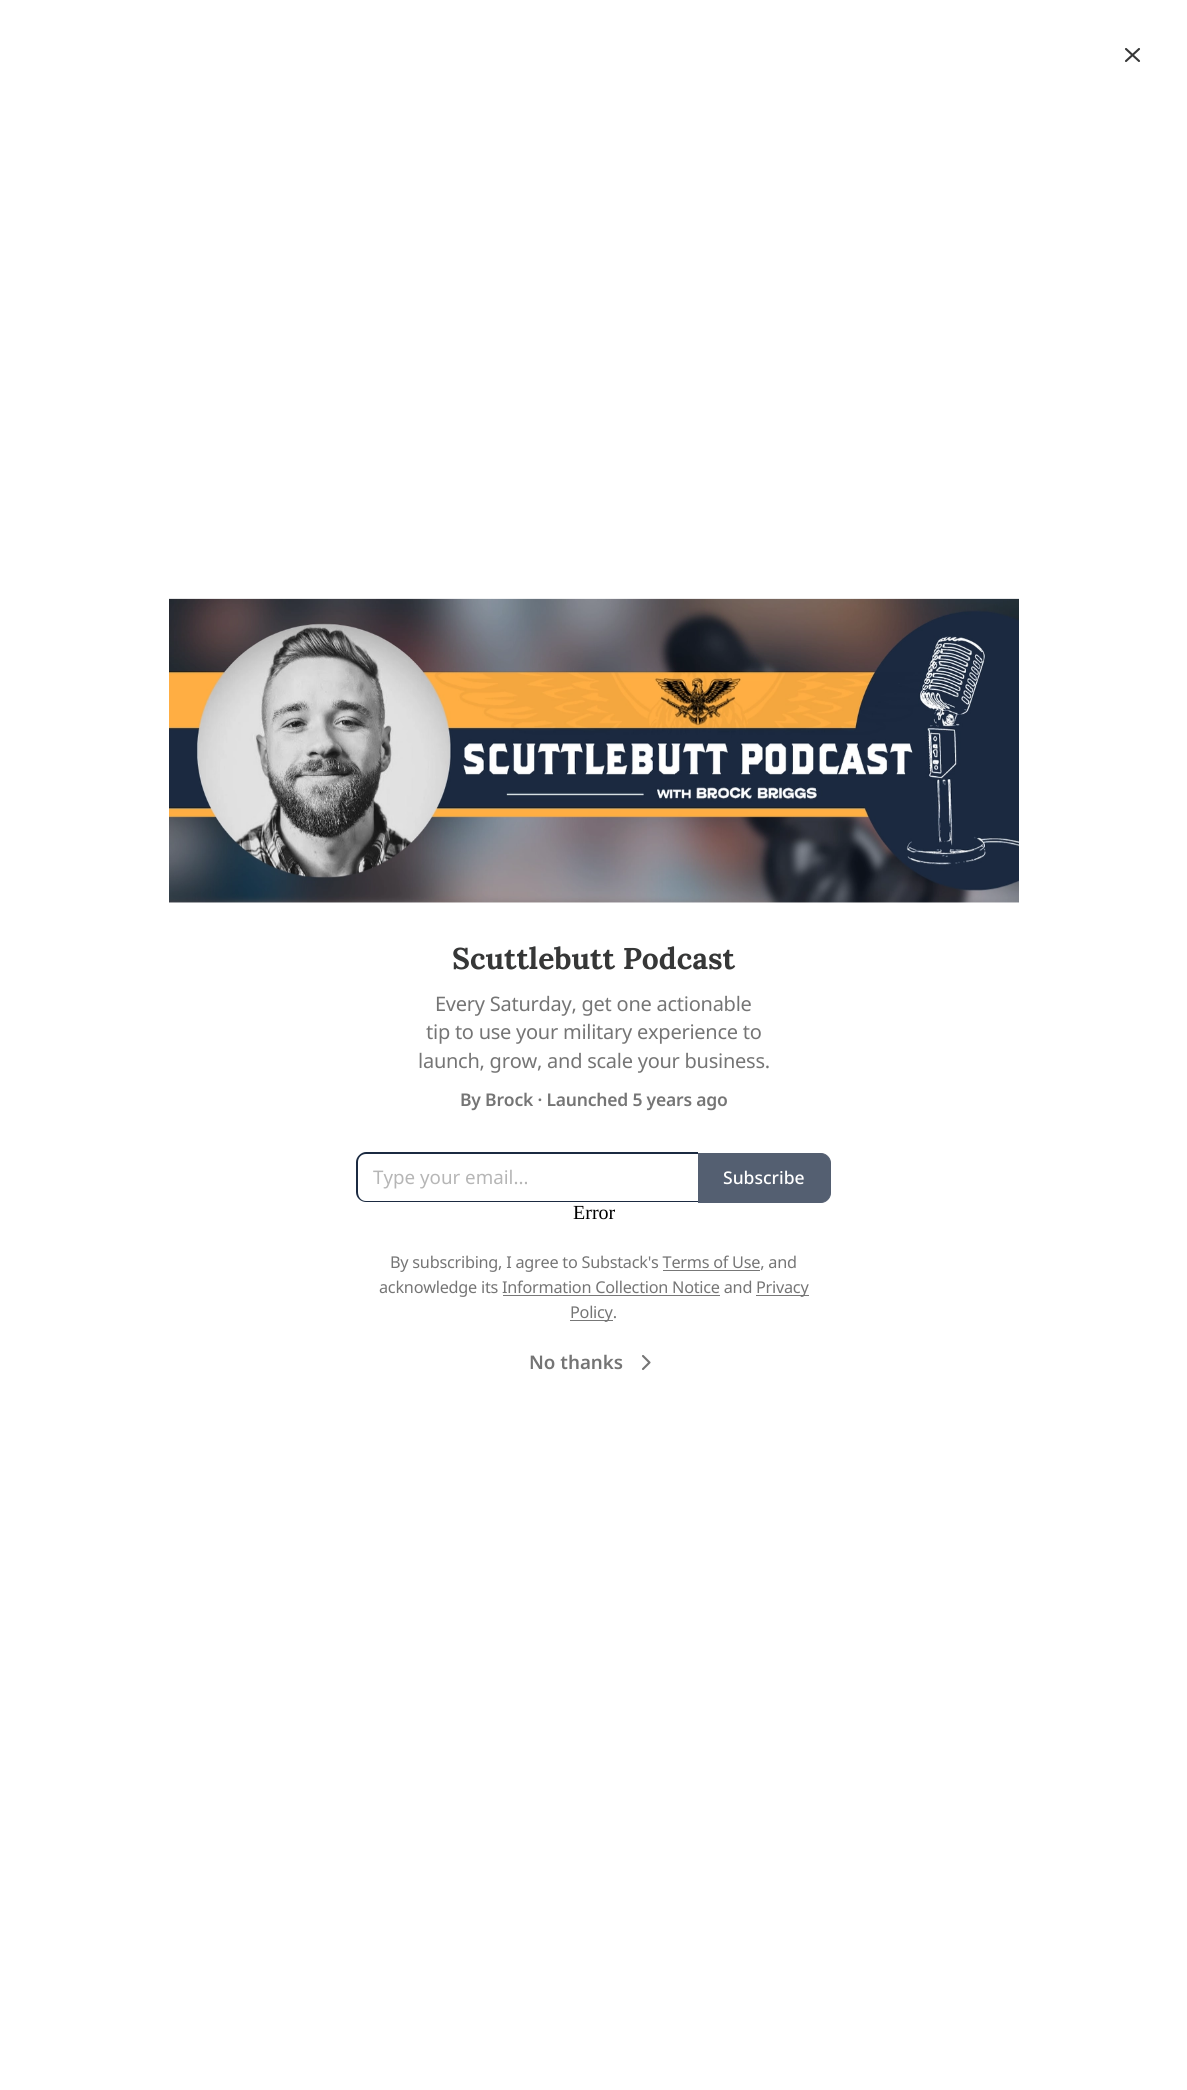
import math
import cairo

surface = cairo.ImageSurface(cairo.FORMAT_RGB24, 1187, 2090)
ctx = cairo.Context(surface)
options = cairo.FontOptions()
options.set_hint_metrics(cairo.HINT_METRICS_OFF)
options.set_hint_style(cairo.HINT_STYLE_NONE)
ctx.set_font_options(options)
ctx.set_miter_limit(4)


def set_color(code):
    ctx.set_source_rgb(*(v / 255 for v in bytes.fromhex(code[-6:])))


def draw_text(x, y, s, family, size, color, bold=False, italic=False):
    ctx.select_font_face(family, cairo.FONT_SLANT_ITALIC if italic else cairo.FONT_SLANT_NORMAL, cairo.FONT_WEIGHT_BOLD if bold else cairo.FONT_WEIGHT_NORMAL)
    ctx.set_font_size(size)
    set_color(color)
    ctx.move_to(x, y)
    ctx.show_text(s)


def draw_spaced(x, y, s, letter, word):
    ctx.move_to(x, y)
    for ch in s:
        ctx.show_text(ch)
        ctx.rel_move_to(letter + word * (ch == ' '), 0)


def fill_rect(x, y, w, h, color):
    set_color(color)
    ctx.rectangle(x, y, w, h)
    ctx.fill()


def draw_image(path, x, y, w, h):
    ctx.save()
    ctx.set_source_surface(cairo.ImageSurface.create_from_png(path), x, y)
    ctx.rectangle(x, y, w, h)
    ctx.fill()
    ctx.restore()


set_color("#ffffff")
ctx.paint()
ctx.new_path()
ctx.move_to(1139, 49)
ctx.line_to(1126, 61)
ctx.move_to(1126, 49)
ctx.line_to(1139, 61)
set_color("#363737")
ctx.set_line_width(2.1)
ctx.set_line_cap(cairo.LINE_CAP_ROUND)
ctx.set_line_join(cairo.LINE_JOIN_ROUND)
ctx.stroke()
draw_image("assets/img1.png", 169, 598, 850, 305)
draw_text(452, 969, "Scuttlebutt Podcast", "Lora", 30, "#363737", bold=True)
ctx.select_font_face("Noto Sans")
ctx.set_font_size(20)
set_color("#757575")
draw_spaced(435, 1011, "Every Saturday, get one actionable", -0.25, 0)
draw_spaced(426, 1039, "tip to use your military experience to", -0.25, 0)
draw_spaced(418, 1068, "launch, grow, and scale your business.", -0.25, 0)
ctx.select_font_face("Noto Sans SemiBold")
ctx.set_font_size(17.5)
draw_spaced(460, 1106, "By Brock · Launched 5 years ago", -0.2, 0)
set_color("#1b2a41")
ctx.set_fill_rule(cairo.FILL_RULE_EVEN_ODD)
ctx.new_path()
ctx.move_to(366, 1152)
ctx.line_to(698, 1152)
ctx.line_to(698, 1202)
ctx.line_to(366, 1202)
ctx.curve_to(361, 1202, 356, 1198, 356, 1192)
ctx.line_to(356, 1162)
ctx.curve_to(356, 1157, 361, 1152, 366, 1152)
ctx.close_path()
ctx.move_to(366, 1154)
ctx.line_to(698, 1154)
ctx.line_to(698, 1201)
ctx.line_to(366, 1201)
ctx.curve_to(361, 1201, 358, 1197, 358, 1192)
ctx.line_to(358, 1162)
ctx.curve_to(358, 1158, 361, 1154, 366, 1154)
ctx.close_path()
ctx.fill()
draw_text(373, 1184, "Type your email...", "Noto Sans", 18.75, "#b6b6b6")
set_color("#545f71")
ctx.new_path()
ctx.move_to(698.5, 1153.5)
ctx.line_to(821, 1153.5)
ctx.curve_to(826, 1153.5, 830.5, 1158, 830.5, 1163)
ctx.line_to(830.5, 1193)
ctx.curve_to(830.5, 1198, 826, 1202.5, 821, 1202.5)
ctx.line_to(698.5, 1202.5)
ctx.close_path()
ctx.fill_preserve()
ctx.set_line_width(1)
ctx.set_line_cap(cairo.LINE_CAP_BUTT)
ctx.set_line_join(cairo.LINE_JOIN_MITER)
ctx.stroke()
draw_text(723, 1184, "Subscribe", "Noto Sans Medium", 17.5, "#ffffff")
draw_text(573, 1219, "Error", "Liberation Serif", 20, "#000000")
ctx.select_font_face("Noto Sans")
ctx.set_font_size(16.25)
set_color("#757575")
draw_spaced(390, 1268, "By subscribing, I agree to Substack's Terms of Use, and", -0.25, 0)
fill_rect(663, 1270, 97, 1, "#777777")
set_color("#757575")
draw_spaced(379, 1293, "acknowledge its Information Collection Notice and", -0.25, 0)
fill_rect(756, 1295, 53, 1, "#777777")
set_color("#757575")
draw_spaced(756, 1293, "Privacy", -0.25, 0)
fill_rect(503, 1295, 217, 1, "#777777")
fill_rect(570, 1320, 43, 1, "#777777")
set_color("#757575")
draw_spaced(570, 1318, "Policy.", -0.25, 0)
draw_text(529, 1369, "No thanks", "Noto Sans SemiBold", 18.75, "#757575")
ctx.new_path()
ctx.move_to(643, 1369)
ctx.line_to(649.5, 1362.5)
ctx.line_to(643, 1356)
ctx.set_line_width(2.1)
ctx.set_line_cap(cairo.LINE_CAP_ROUND)
ctx.set_line_join(cairo.LINE_JOIN_ROUND)
ctx.stroke()
surface.write_to_png("output.png")
